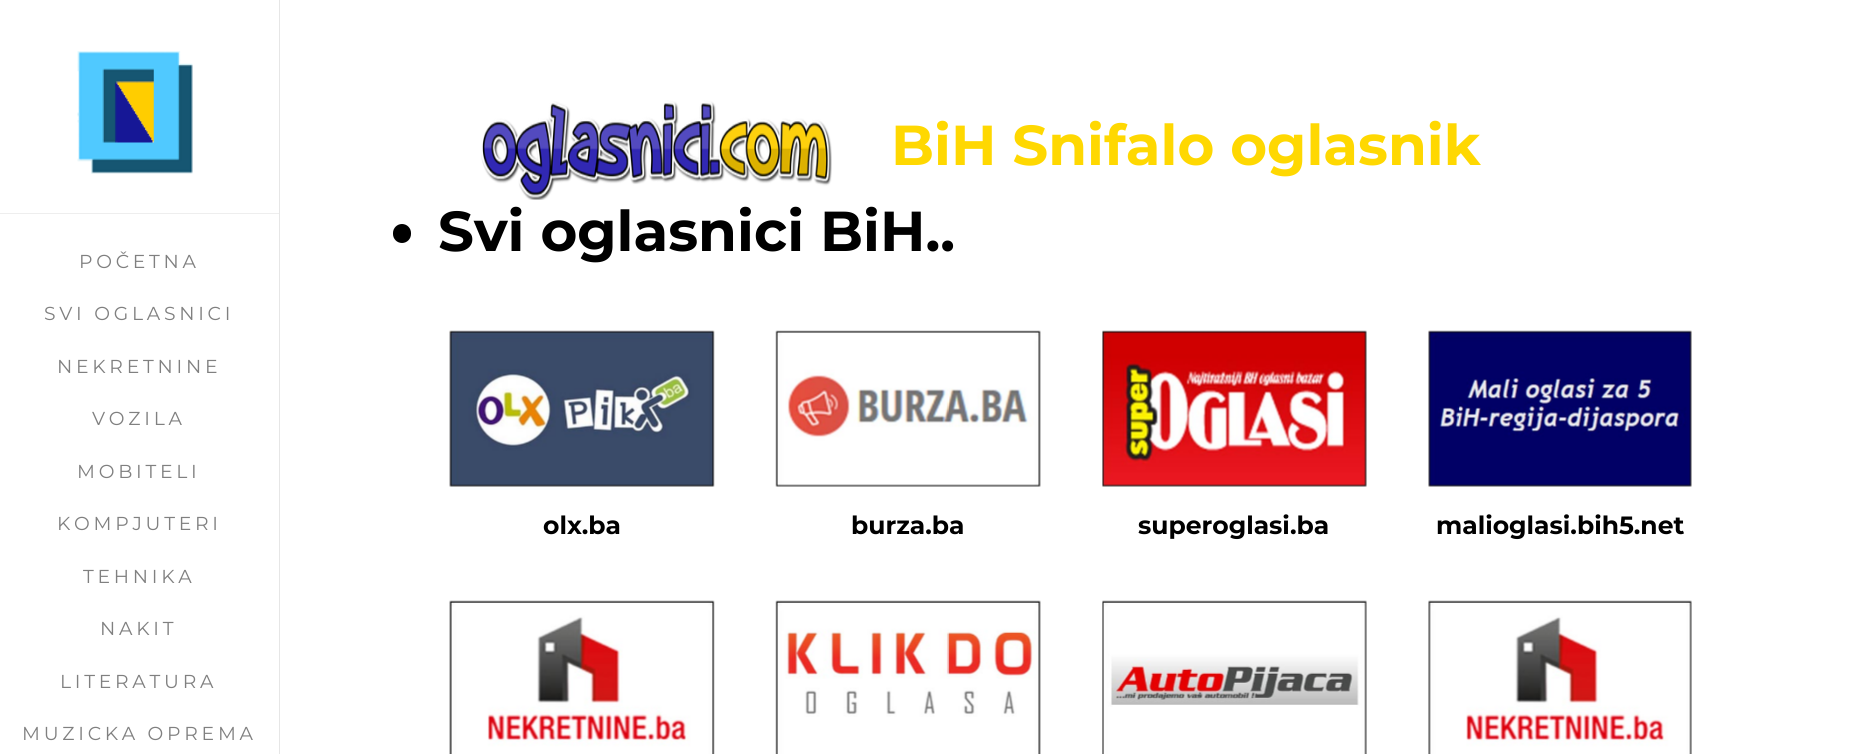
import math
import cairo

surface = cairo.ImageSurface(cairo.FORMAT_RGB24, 1862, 754)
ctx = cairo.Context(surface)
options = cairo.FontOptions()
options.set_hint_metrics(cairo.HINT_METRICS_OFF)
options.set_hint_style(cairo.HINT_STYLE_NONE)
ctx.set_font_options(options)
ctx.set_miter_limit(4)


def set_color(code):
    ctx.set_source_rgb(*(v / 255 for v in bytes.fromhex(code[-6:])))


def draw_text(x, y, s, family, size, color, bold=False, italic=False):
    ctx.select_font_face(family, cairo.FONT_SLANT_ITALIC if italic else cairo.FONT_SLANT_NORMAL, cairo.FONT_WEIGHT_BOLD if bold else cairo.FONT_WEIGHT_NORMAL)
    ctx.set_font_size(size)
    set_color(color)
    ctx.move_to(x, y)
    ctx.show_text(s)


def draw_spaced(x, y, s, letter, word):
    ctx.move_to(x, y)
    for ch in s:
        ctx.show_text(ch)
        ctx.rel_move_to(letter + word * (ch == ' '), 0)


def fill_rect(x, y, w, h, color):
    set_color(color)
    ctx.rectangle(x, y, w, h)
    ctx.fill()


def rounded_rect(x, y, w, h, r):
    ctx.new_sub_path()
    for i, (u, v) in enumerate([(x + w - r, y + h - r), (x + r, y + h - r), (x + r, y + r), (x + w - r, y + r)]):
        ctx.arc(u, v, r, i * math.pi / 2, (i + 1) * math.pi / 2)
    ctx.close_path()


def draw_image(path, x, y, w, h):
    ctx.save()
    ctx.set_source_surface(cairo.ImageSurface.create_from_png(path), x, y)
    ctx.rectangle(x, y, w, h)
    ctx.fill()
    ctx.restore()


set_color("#ffffff")
ctx.paint()
fill_rect(279, 0, 1, 754, "#e6e6e6")
draw_image("assets/img1.png", 77, 51, 116, 123)
fill_rect(0, 213, 279, 1, "#eeeeee")
ctx.select_font_face("Montserrat")
ctx.set_font_size(18.75)
set_color("#808080")
draw_spaced(79, 268, "POČETNA", 3.75, 0)
draw_spaced(44, 320, "SVI OGLASNICI", 3.75, 0)
draw_spaced(57, 373, "NEKRETNINE", 3.75, 0)
draw_spaced(92, 425, "VOZILA", 3.75, 0)
draw_spaced(77, 478, "MOBITELI", 3.75, 0)
draw_spaced(57, 530, "KOMPJUTERI", 3.75, 0)
draw_spaced(83, 583, "TEHNIKA", 3.75, 0)
draw_spaced(100, 635, "NAKIT", 3.75, 0)
draw_spaced(60, 688, "LITERATURA", 3.75, 0)
draw_spaced(22, 740, "MUZICKA OPREMA", 3.75, 0)
draw_image("assets/img2.png", 481, 100, 351, 100)
draw_text(891, 165, "BiH Snifalo oglasnik", "Montserrat", 56.25, "#ffd801", bold=True)
set_color("#000000")
rounded_rect(393, 224, 18, 19, 9)
ctx.fill()
draw_text(438, 251, "Svi oglasnici BiH..", "Montserrat", 56.25, "#000000", bold=True)
draw_image("assets/img3.png", 449, 330, 266, 157)
draw_text(543, 534, "olx.ba", "Montserrat", 25, "#000000", bold=True)
draw_image("assets/img4.png", 775, 330, 266, 157)
draw_text(851, 534, "burza.ba", "Montserrat", 25, "#000000", bold=True)
draw_image("assets/img5.png", 1102, 330, 265, 157)
draw_text(1138, 534, "superoglasi.ba", "Montserrat", 25, "#000000", bold=True)
draw_image("assets/img6.png", 1428, 330, 264, 157)
draw_text(1436, 534, "malioglasi.bih5.net", "Montserrat", 25, "#000000", bold=True)
draw_image("assets/img7.png", 449, 600, 266, 154)
draw_image("assets/img8.png", 775, 600, 266, 154)
draw_image("assets/img9.png", 1102, 600, 265, 154)
draw_image("assets/img10.png", 1428, 600, 264, 154)
surface.write_to_png("output.png")
